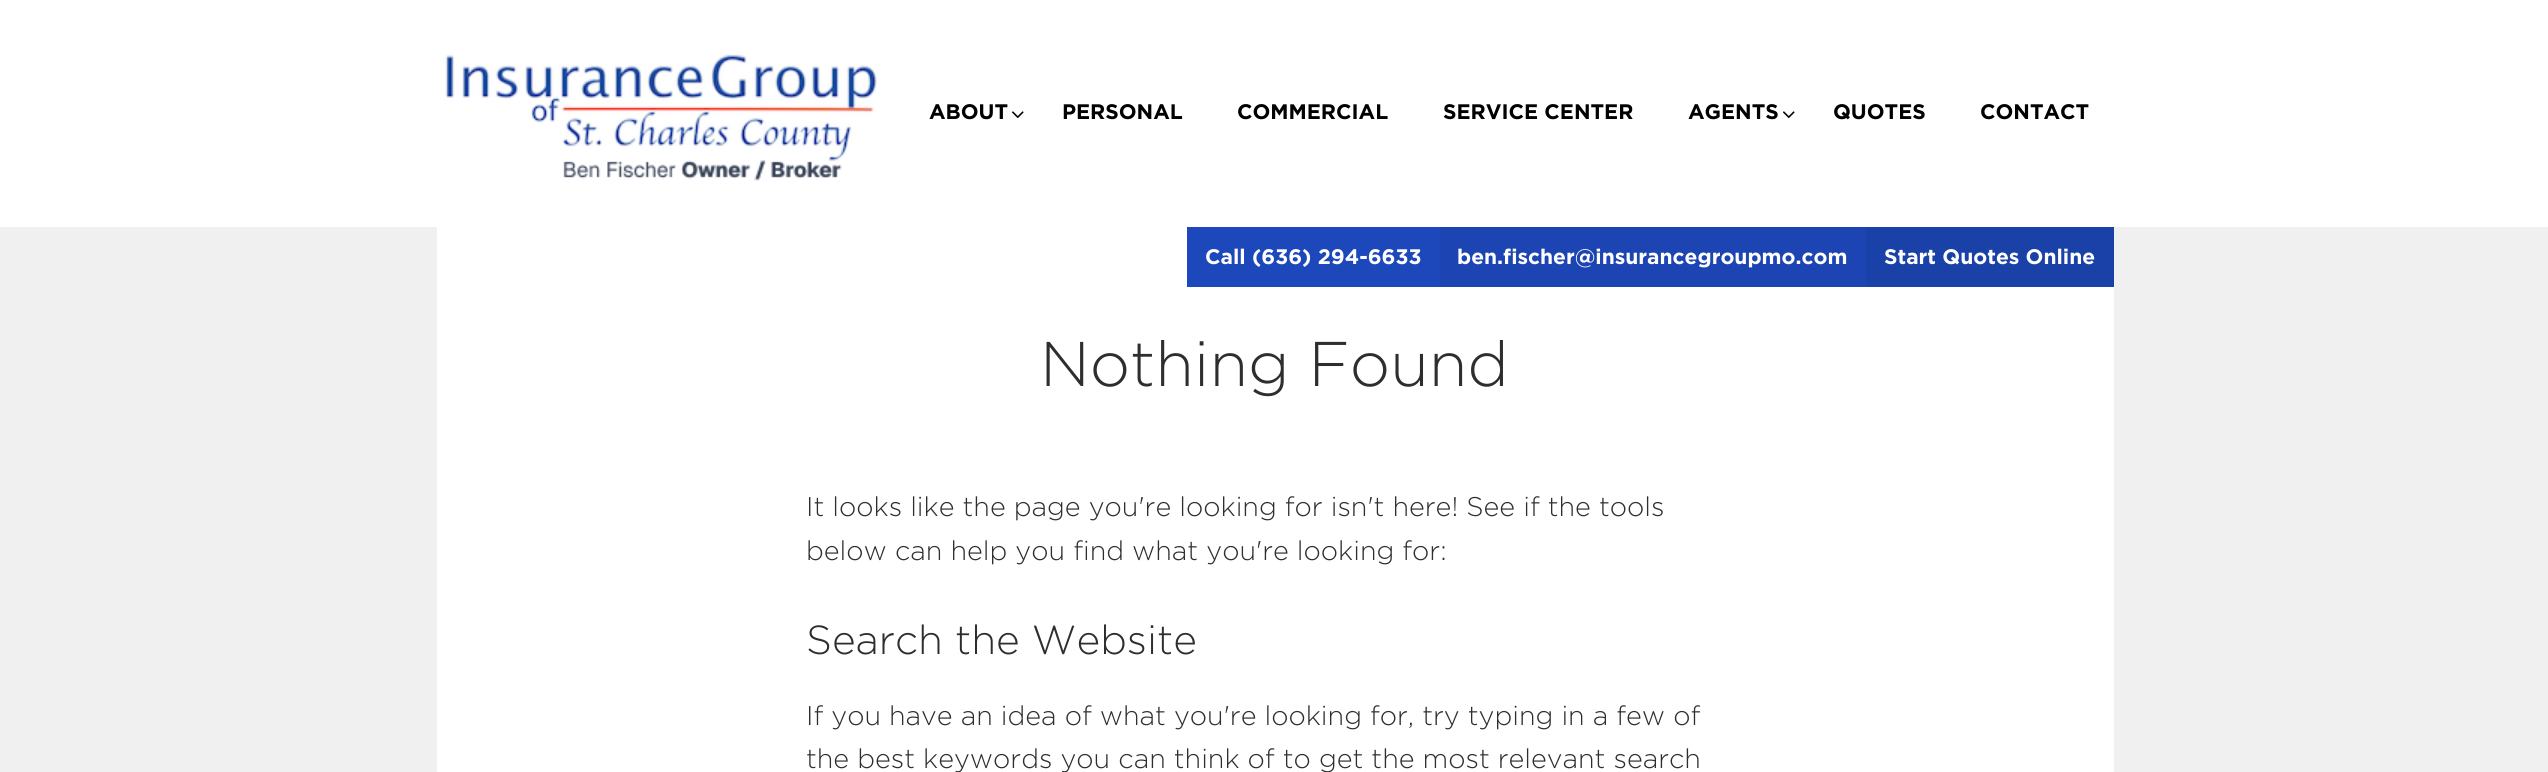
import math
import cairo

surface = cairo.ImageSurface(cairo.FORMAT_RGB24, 2548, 772)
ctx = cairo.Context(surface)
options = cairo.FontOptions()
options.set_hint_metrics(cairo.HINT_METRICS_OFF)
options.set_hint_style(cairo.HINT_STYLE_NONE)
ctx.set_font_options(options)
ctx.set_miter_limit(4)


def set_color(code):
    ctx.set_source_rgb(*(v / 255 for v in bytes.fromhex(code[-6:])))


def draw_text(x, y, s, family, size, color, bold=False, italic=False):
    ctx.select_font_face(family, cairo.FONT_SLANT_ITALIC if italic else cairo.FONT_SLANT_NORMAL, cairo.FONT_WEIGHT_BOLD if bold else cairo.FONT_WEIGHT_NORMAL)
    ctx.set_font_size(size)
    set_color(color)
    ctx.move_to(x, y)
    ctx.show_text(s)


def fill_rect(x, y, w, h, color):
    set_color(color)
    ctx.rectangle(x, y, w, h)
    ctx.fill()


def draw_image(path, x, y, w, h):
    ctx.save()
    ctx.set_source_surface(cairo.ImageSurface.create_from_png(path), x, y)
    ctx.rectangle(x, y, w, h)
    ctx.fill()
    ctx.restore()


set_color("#f0f0f0")
ctx.paint()
fill_rect(0, 0, 2548, 227, "#ffffff")
draw_image("assets/img1.png", 445, 54, 432, 127)
draw_text(929, 119, "ABOUT", "Gotham", 21, "#000000", bold=True)
draw_image("assets/img2.png", 1012, 111, 12, 8)
draw_text(1062, 119, "PERSONAL", "Gotham", 21, "#000000", bold=True)
draw_text(1237, 119, "COMMERCIAL", "Gotham", 21, "#000000", bold=True)
draw_text(1443, 119, "SERVICE CENTER", "Gotham", 21, "#000000", bold=True)
draw_text(1688, 119, "AGENTS", "Gotham", 21, "#000000", bold=True)
draw_image("assets/img2.png", 1783, 111, 12, 8)
draw_text(1833, 119, "QUOTES", "Gotham", 21, "#000000", bold=True)
draw_text(1980, 119, "CONTACT", "Gotham", 21, "#000000", bold=True)
fill_rect(437, 227, 1677, 545, "#ffffff")
fill_rect(1187, 227, 253, 60, "#1d48bc")
draw_text(1205, 264, "Call (636) 294-6633", "Gotham", 21, "#ffffff", bold=True)
fill_rect(1440, 227, 426, 60, "#1c44b2")
draw_text(1457, 264, "ben.fischer@insurancegroupmo.com", "Gotham", 21, "#ffffff", bold=True)
fill_rect(1866, 227, 248, 60, "#1a41a8")
draw_text(1884, 264, "Start Quotes Online", "Gotham", 21, "#ffffff", bold=True)
draw_text(1040, 386, "Nothing Found", "Gotham Light", 63, "#2e2e2e")
draw_text(806, 516, "It looks like the page you're looking for isn't here! See if the tools", "Gotham Light", 27, "#2e2e2e")
draw_text(806, 560, "below can help you find what you're looking for:", "Gotham Light", 27, "#2e2e2e")
draw_text(806, 654, "Search the Website", "Gotham Light", 40.5, "#2e2e2e")
draw_text(806, 725, "If you have an idea of what you're looking for, try typing in a few of", "Gotham Light", 27, "#2e2e2e")
draw_text(806, 768, "the best keywords you can think of to get the most relevant search", "Gotham Light", 27, "#2e2e2e")
surface.write_to_png("output.png")
